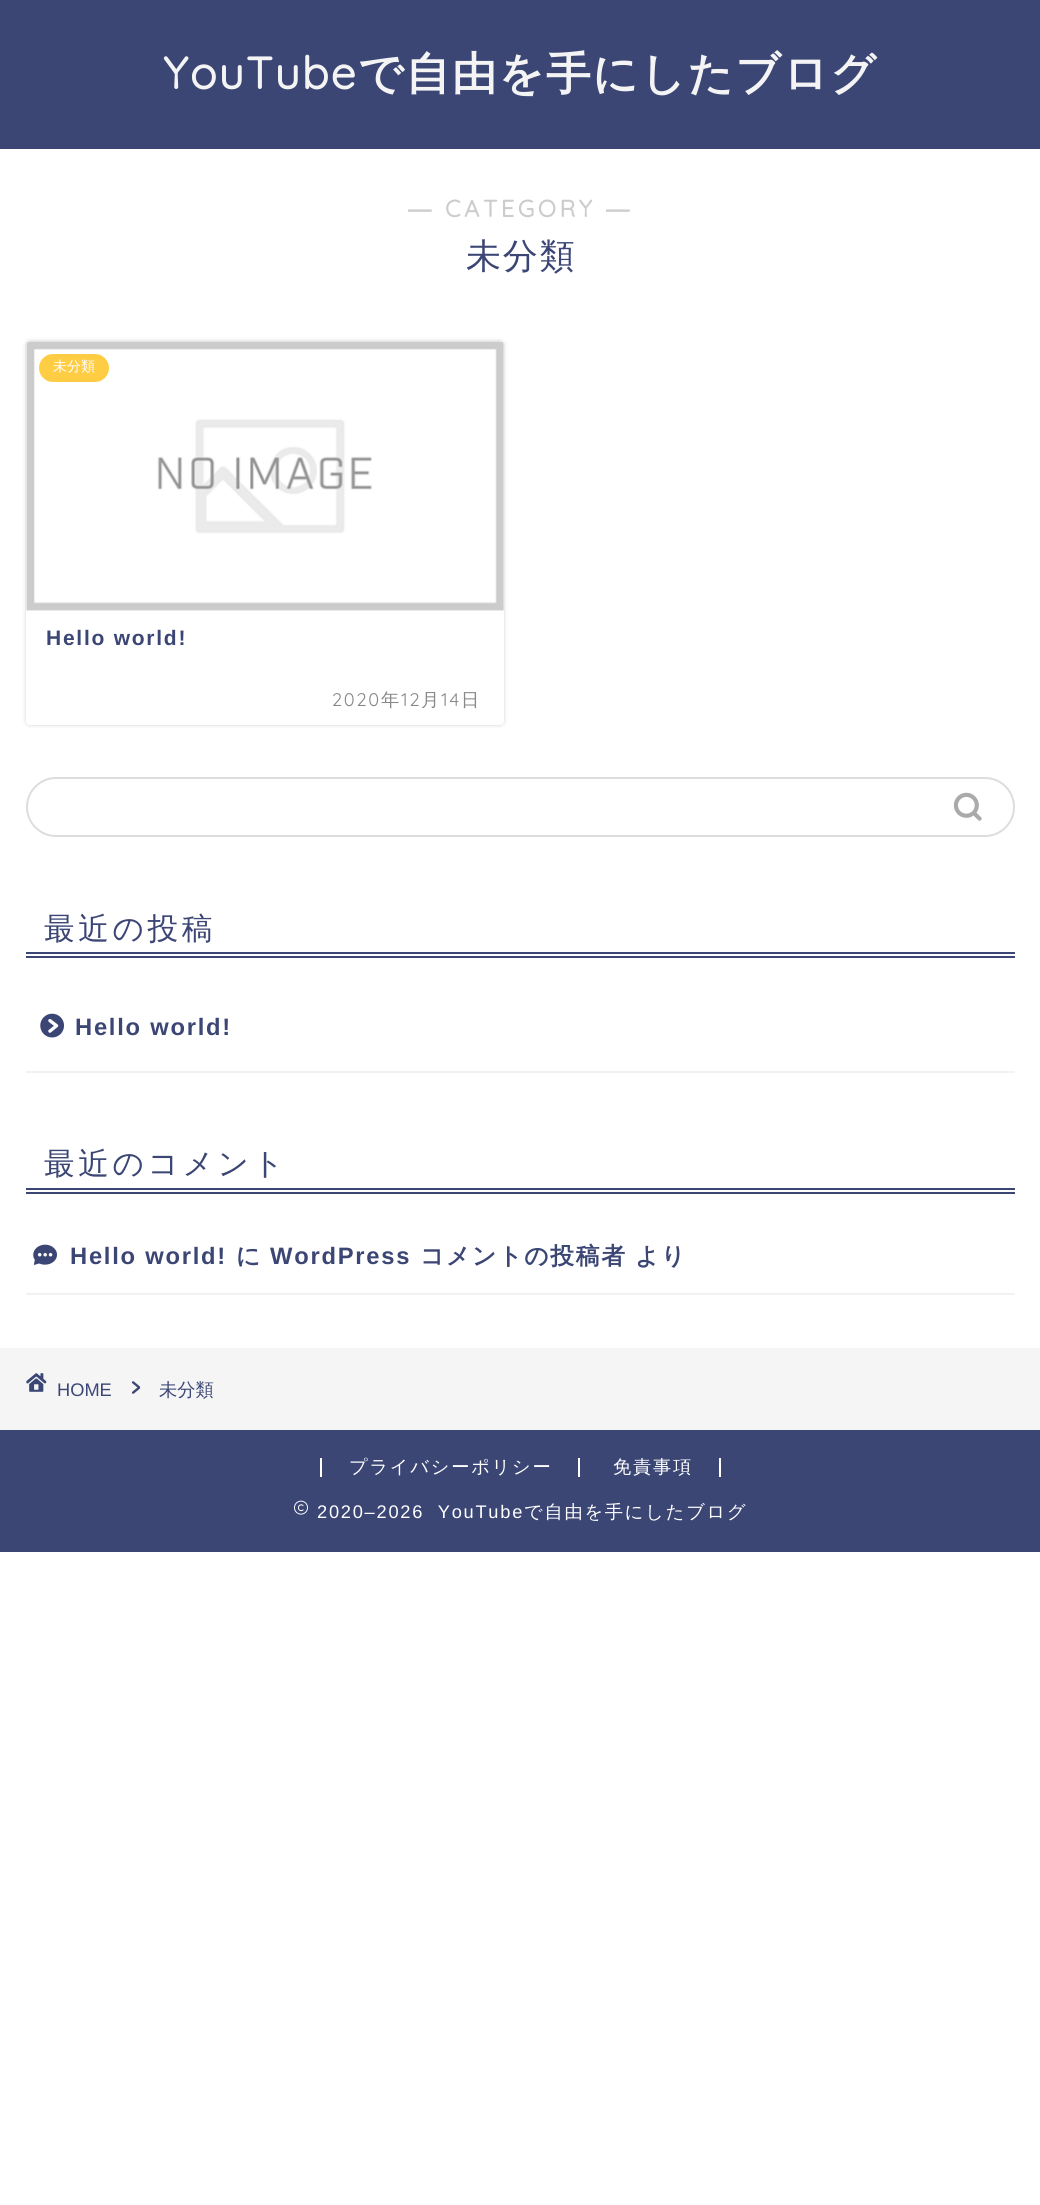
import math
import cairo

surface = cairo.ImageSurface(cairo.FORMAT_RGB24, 1040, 2205)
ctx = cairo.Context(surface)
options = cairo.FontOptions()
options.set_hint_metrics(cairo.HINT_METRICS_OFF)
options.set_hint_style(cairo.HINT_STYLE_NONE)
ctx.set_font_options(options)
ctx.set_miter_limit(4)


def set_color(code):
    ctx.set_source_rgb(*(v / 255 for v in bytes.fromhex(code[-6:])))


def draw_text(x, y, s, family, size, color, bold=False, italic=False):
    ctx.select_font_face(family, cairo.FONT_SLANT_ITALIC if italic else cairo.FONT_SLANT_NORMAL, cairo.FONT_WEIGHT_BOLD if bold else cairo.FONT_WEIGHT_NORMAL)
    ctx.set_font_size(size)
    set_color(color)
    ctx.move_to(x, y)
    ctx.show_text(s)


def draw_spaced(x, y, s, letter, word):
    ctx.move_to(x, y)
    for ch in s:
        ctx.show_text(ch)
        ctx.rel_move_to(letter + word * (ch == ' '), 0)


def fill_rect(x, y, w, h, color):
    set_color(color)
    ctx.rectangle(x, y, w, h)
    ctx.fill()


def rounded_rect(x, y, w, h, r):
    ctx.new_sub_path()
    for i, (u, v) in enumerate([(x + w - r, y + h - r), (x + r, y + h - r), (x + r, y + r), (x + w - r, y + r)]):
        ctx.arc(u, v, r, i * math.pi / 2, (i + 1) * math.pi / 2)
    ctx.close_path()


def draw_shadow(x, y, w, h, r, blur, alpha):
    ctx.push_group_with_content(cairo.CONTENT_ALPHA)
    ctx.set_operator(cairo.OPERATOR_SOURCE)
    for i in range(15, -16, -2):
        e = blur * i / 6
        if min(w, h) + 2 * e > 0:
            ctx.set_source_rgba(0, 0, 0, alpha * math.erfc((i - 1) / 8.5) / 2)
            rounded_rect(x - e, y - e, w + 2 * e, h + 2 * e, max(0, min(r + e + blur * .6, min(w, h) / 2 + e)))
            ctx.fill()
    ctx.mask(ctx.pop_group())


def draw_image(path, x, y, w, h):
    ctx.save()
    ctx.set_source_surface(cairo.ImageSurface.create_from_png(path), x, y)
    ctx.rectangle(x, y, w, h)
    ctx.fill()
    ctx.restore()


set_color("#ffffff")
ctx.paint()
fill_rect(0, 0, 1040, 149, "#3b4675")
ctx.select_font_face("Quicksand", cairo.FONT_SLANT_NORMAL, cairo.FONT_WEIGHT_BOLD)
ctx.set_font_size(44.75)
set_color("#f4f4f4")
draw_spaced(163, 89, "YouTube", 1.75, 0)
ctx.select_font_face("WenQuanYi Zen Hei", cairo.FONT_SLANT_NORMAL, cairo.FONT_WEIGHT_BOLD)
draw_spaced(358, 89, "で自由を手にしたブログ", 1.75, 0)
ctx.select_font_face("Liberation Sans", cairo.FONT_SLANT_NORMAL, cairo.FONT_WEIGHT_BOLD)
ctx.set_font_size(23.75)
set_color("#cccccc")
draw_spaced(408, 217, "―", 3.5, 0)
ctx.select_font_face("Quicksand", cairo.FONT_SLANT_NORMAL, cairo.FONT_WEIGHT_BOLD)
draw_spaced(445, 217, "CATEGORY", 3.5, 0)
ctx.select_font_face("Liberation Sans", cairo.FONT_SLANT_NORMAL, cairo.FONT_WEIGHT_BOLD)
draw_spaced(606, 217, "―", 3.5, 0)
ctx.select_font_face("WenQuanYi Zen Hei Medium")
ctx.set_font_size(35)
set_color("#3b4675")
draw_spaced(466, 268, "未分類", 1.75, 0)
set_color("#000000")
draw_shadow(26, 341, 478, 384, 4, 2, 0.18)
set_color("#ffffff")
rounded_rect(26, 341, 478, 384, 4)
ctx.fill()
draw_image("assets/img1.png", 26, 341, 478, 270)
set_color("#ffcd44")
rounded_rect(39, 354, 70, 28, 14)
ctx.fill()
draw_text(53, 371, "未分類", "WenQuanYi Zen Hei Medium", 14, "#ffffff")
ctx.select_font_face("Liberation Sans", cairo.FONT_SLANT_NORMAL, cairo.FONT_WEIGHT_BOLD)
ctx.set_font_size(21)
set_color("#3b4675")
draw_spaced(46, 645, "Hello world!", 1.75, 0)
ctx.select_font_face("Quicksand Light")
ctx.set_font_size(18.25)
set_color("#888888")
draw_spaced(332, 706, "2020", 1.75, 0)
ctx.select_font_face("WenQuanYi Zen Hei Medium")
draw_spaced(381, 706, "年", 1.75, 0)
ctx.select_font_face("Quicksand Light")
draw_spaced(401, 706, "12", 1.75, 0)
ctx.select_font_face("WenQuanYi Zen Hei Medium")
draw_spaced(421, 706, "月", 1.75, 0)
ctx.select_font_face("Quicksand Light")
draw_spaced(441, 706, "14", 1.75, 0)
ctx.select_font_face("WenQuanYi Zen Hei Medium")
draw_spaced(461, 706, "日", 1.75, 0)
rounded_rect(27, 778, 987, 58, 29)
set_color("#dddddd")
ctx.stroke()
draw_image("assets/img2.png", 953, 792, 29, 29)
fill_rect(26, 952, 989, 2, "#3b4675")
fill_rect(26, 956, 989, 2, "#3b4675")
ctx.set_font_size(30.75)
draw_spaced(44, 939, "最近の投稿", 3.5, 0)
fill_rect(26, 1071, 989, 2, "#f2f2f2")
draw_image("assets/img3.png", 40, 1013, 25, 25)
ctx.select_font_face("Liberation Sans", cairo.FONT_SLANT_NORMAL, cairo.FONT_WEIGHT_BOLD)
ctx.set_font_size(23.75)
set_color("#3b4675")
draw_spaced(75, 1035, "Hello world!", 1.75, 0)
fill_rect(26, 1188, 989, 2, "#3b4675")
fill_rect(26, 1192, 989, 2, "#3b4675")
ctx.select_font_face("WenQuanYi Zen Hei Medium")
ctx.set_font_size(30.75)
draw_spaced(44, 1174, "最近のコメント", 3.5, 0)
fill_rect(26, 1293, 989, 2, "#f2f2f2")
draw_image("assets/img4.png", 33, 1244, 24, 21)
ctx.select_font_face("Liberation Sans", cairo.FONT_SLANT_NORMAL, cairo.FONT_WEIGHT_BOLD)
ctx.set_font_size(23.75)
set_color("#3b4675")
draw_spaced(70, 1264, "Hello world!", 1.75, 0)
ctx.select_font_face("WenQuanYi Zen Hei", cairo.FONT_SLANT_NORMAL, cairo.FONT_WEIGHT_BOLD)
draw_spaced(236, 1264, "に", 1.75, 0)
ctx.select_font_face("Liberation Sans", cairo.FONT_SLANT_NORMAL, cairo.FONT_WEIGHT_BOLD)
draw_spaced(270, 1264, "WordPress", 1.75, 0)
ctx.select_font_face("WenQuanYi Zen Hei", cairo.FONT_SLANT_NORMAL, cairo.FONT_WEIGHT_BOLD)
draw_spaced(420, 1264, "コメントの投稿者", 1.75, 0)
draw_spaced(635, 1264, "より", 1.75, 0)
fill_rect(0, 1348, 1040, 82, "#f5f5f5")
draw_image("assets/img5.png", 26, 1373, 21, 19)
draw_text(57, 1396, "HOME", "Liberation Sans", 18.25, "#3b4675")
draw_image("assets/img6.png", 131, 1381, 10, 13)
draw_text(159, 1396, "未分類", "WenQuanYi Zen Hei Medium", 18.25, "#3b4675")
fill_rect(0, 1430, 1040, 122, "#3b4675")
set_color("#ffffff")
draw_spaced(349, 1473, "プライバシーポリシー", 1.75, 0)
fill_rect(578, 1458, 2, 19, "#ffffff")
fill_rect(320, 1458, 2, 19, "#ffffff")
draw_spaced(613, 1473, "免責事項", 1.75, 0)
fill_rect(719, 1458, 2, 19, "#ffffff")
draw_image("assets/img7.png", 294, 1500, 14, 15)
ctx.select_font_face("Liberation Sans")
draw_spaced(317, 1518, "2020–2026  YouTube", 1.75, 0)
ctx.select_font_face("WenQuanYi Zen Hei Medium")
draw_spaced(524, 1518, "で自由を手にしたブログ", 1.75, 0)
surface.write_to_png("output.png")
